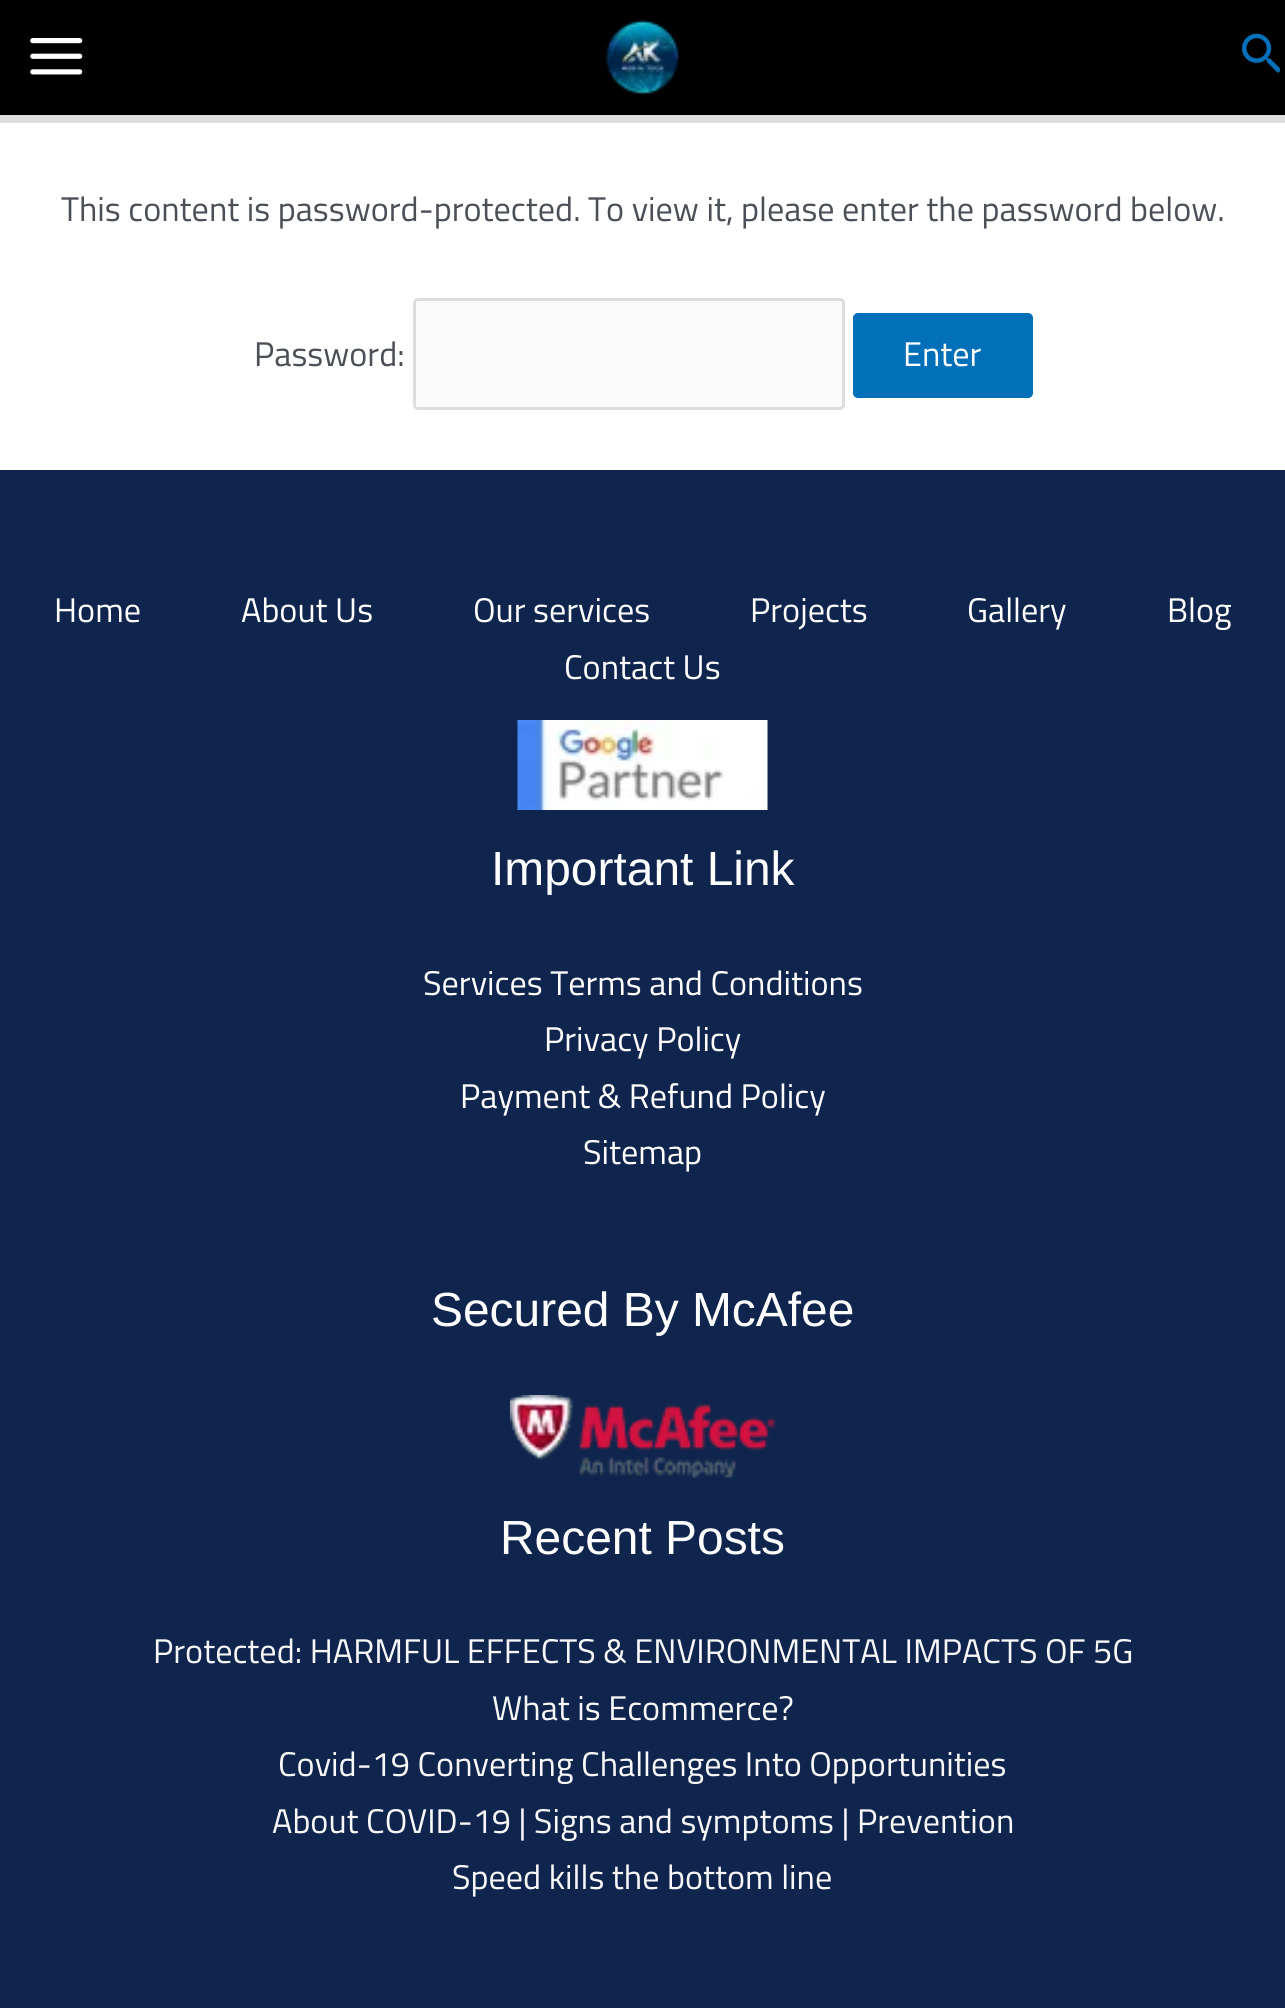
import math
import cairo

surface = cairo.ImageSurface(cairo.FORMAT_RGB24, 1285, 2008)
ctx = cairo.Context(surface)
options = cairo.FontOptions()
options.set_hint_metrics(cairo.HINT_METRICS_OFF)
options.set_hint_style(cairo.HINT_STYLE_NONE)
ctx.set_font_options(options)
ctx.set_miter_limit(4)


def set_color(code):
    ctx.set_source_rgb(*(v / 255 for v in bytes.fromhex(code[-6:])))


def draw_text(x, y, s, family, size, color, bold=False, italic=False):
    ctx.select_font_face(family, cairo.FONT_SLANT_ITALIC if italic else cairo.FONT_SLANT_NORMAL, cairo.FONT_WEIGHT_BOLD if bold else cairo.FONT_WEIGHT_NORMAL)
    ctx.set_font_size(size)
    set_color(color)
    ctx.move_to(x, y)
    ctx.show_text(s)


def fill_rect(x, y, w, h, color):
    set_color(color)
    ctx.rectangle(x, y, w, h)
    ctx.fill()


def rounded_rect(x, y, w, h, r):
    ctx.new_sub_path()
    for i, (u, v) in enumerate([(x + w - r, y + h - r), (x + r, y + h - r), (x + r, y + r), (x + w - r, y + r)]):
        ctx.arc(u, v, r, i * math.pi / 2, (i + 1) * math.pi / 2)
    ctx.close_path()


def draw_image(path, x, y, w, h):
    ctx.save()
    ctx.set_source_surface(cairo.ImageSurface.create_from_png(path), x, y)
    ctx.rectangle(x, y, w, h)
    ctx.fill()
    ctx.restore()


set_color("#ffffff")
ctx.paint()
fill_rect(0, 0, 1285, 115, "#000000")
fill_rect(0, 115, 1285, 8, "#dddddd")
draw_image("assets/img1.png", 30, 38, 53, 37)
draw_image("assets/img2.png", 605, 20, 75, 75)
draw_image("assets/img3.png", 1242, 33, 38, 40)
draw_text(61, 221, "This content is password-protected. To view it, please enter the password below.", "Titillium Web", 34.2, "#4b4f58")
draw_text(254, 366, "Password:", "Titillium Web", 34.2, "#4b4f58")
set_color("#fafafa")
rounded_rect(414.5, 299.5, 429, 109, 3.5)
ctx.fill_preserve()
set_color("#dddddd")
ctx.set_line_width(3)
ctx.stroke()
set_color("#0170b9")
rounded_rect(853, 313, 180, 85, 5)
ctx.fill()
draw_text(903, 366, "Enter", "Titillium Web", 34.2, "#ffffff")
fill_rect(0, 470, 1285, 1538, "#0f254e")
draw_text(54, 622, "Home", "Titillium Web", 34.2, "#ffffff")
draw_text(241, 622, "About Us", "Titillium Web", 34.2, "#ffffff")
draw_text(473, 622, "Our services", "Titillium Web", 34.2, "#ffffff")
draw_text(750, 622, "Projects", "Titillium Web", 34.2, "#ffffff")
draw_text(967, 622, "Gallery", "Titillium Web", 34.2, "#ffffff")
draw_text(1167, 622, "Blog", "Titillium Web", 34.2, "#ffffff")
draw_text(564, 679, "Contact Us", "Titillium Web", 34.2, "#ffffff")
draw_image("assets/img4.png", 517, 720, 251, 90)
draw_text(491, 885, "Important Link", "Liberation Sans", 47.9, "#ffffff")
draw_text(423, 995, "Services Terms and Conditions", "Titillium Web", 34.2, "#ffffff")
draw_text(544, 1051, "Privacy Policy", "Titillium Web", 34.2, "#ffffff")
draw_text(460, 1108, "Payment & Refund Policy", "Titillium Web", 34.2, "#ffffff")
draw_text(583, 1164, "Sitemap", "Titillium Web", 34.2, "#ffffff")
draw_text(431, 1326, "Secured By McAfee", "Liberation Sans", 47.9, "#ffffff")
draw_image("assets/img5.png", 510, 1395, 265, 83)
draw_text(500, 1554, "Recent Posts", "Liberation Sans", 47.9, "#ffffff")
draw_text(153, 1663, "Protected: HARMFUL EFFECTS & ENVIRONMENTAL IMPACTS OF 5G", "Titillium Web", 34.2, "#f8f8f8")
draw_text(492, 1720, "What is Ecommerce?", "Titillium Web", 34.2, "#f8f8f8")
draw_text(278, 1776, "Covid-19 Converting Challenges Into Opportunities", "Titillium Web", 34.2, "#f8f8f8")
draw_text(272, 1833, "About COVID-19 | Signs and symptoms | Prevention", "Titillium Web", 34.2, "#f8f8f8")
draw_text(452, 1889, "Speed kills the bottom line", "Titillium Web", 34.2, "#f8f8f8")
surface.write_to_png("output.png")
